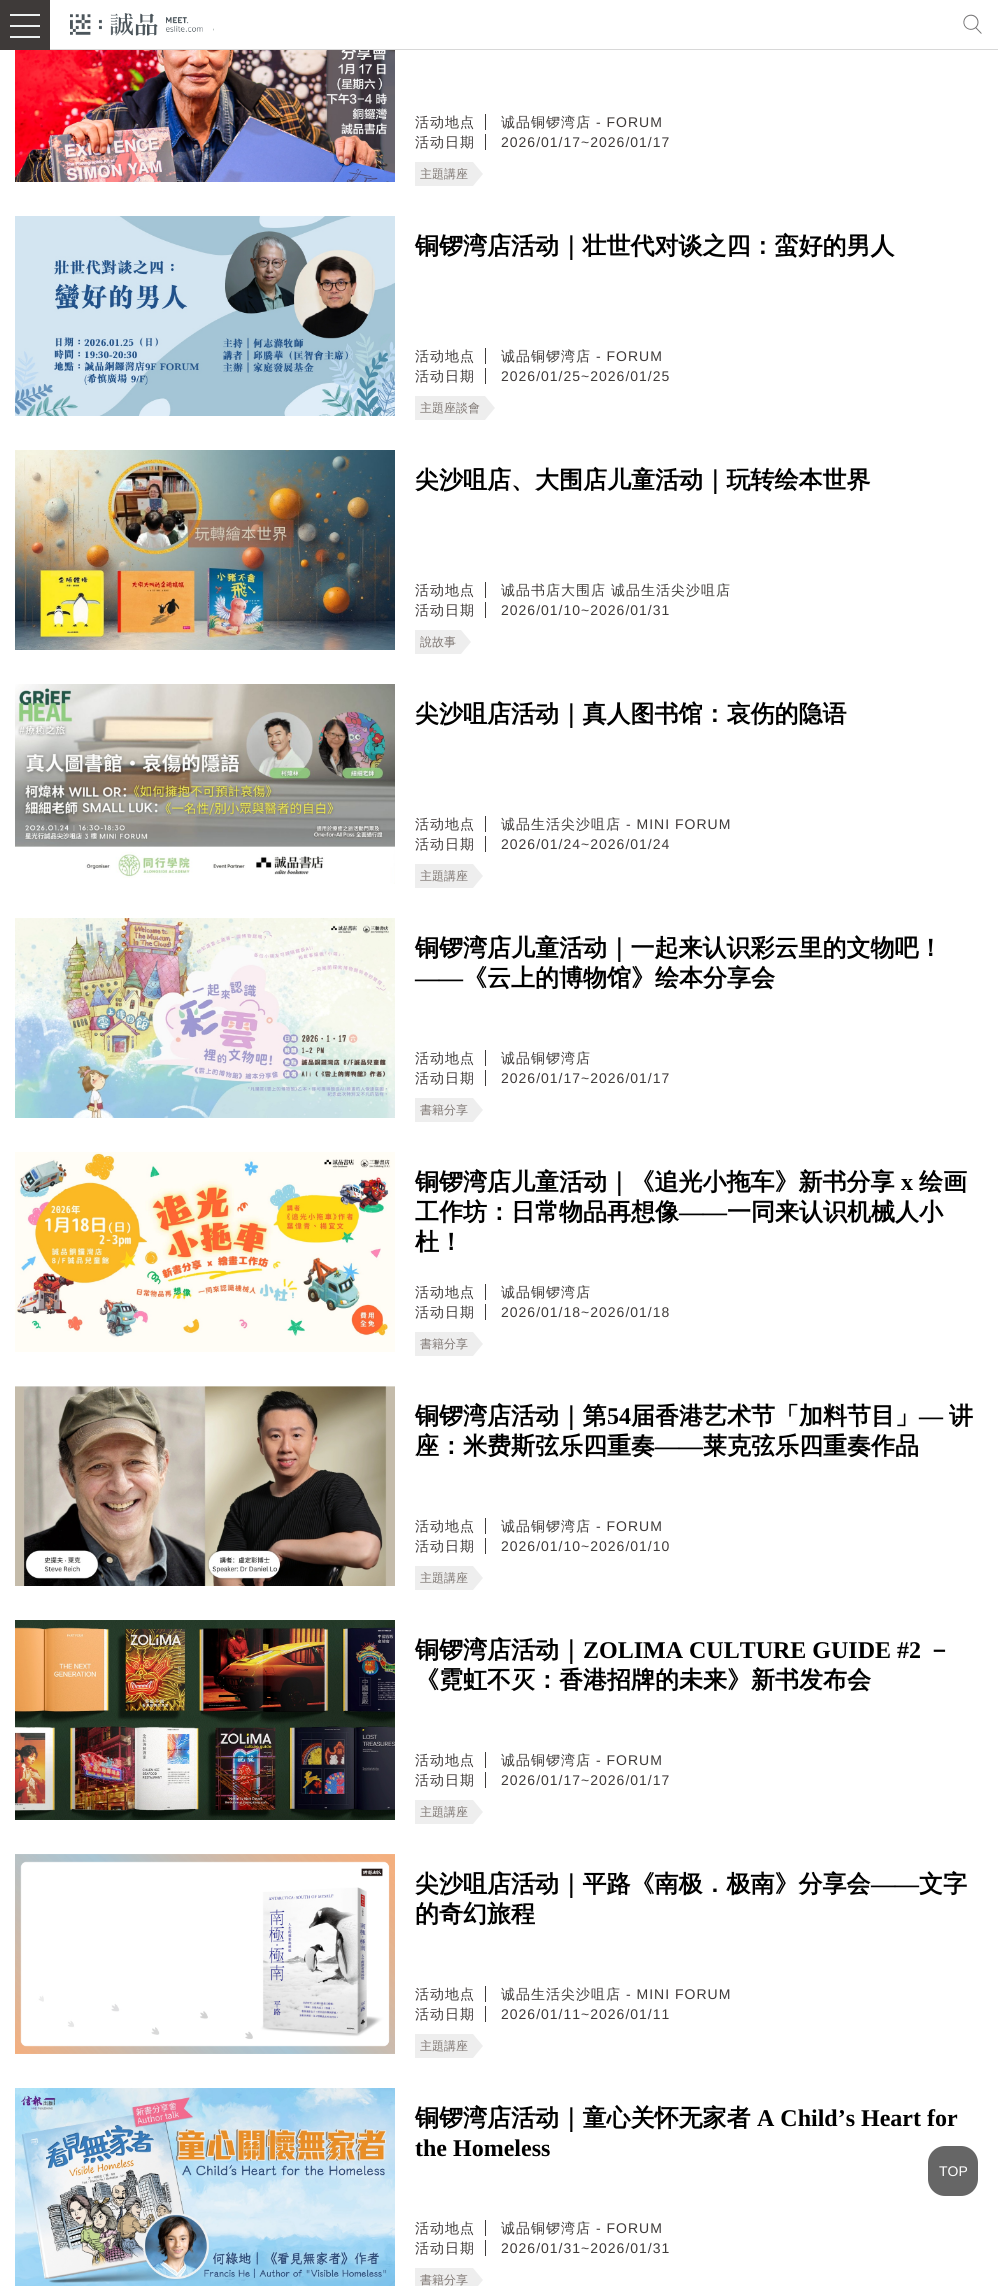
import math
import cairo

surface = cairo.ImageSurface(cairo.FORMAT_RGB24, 998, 2286)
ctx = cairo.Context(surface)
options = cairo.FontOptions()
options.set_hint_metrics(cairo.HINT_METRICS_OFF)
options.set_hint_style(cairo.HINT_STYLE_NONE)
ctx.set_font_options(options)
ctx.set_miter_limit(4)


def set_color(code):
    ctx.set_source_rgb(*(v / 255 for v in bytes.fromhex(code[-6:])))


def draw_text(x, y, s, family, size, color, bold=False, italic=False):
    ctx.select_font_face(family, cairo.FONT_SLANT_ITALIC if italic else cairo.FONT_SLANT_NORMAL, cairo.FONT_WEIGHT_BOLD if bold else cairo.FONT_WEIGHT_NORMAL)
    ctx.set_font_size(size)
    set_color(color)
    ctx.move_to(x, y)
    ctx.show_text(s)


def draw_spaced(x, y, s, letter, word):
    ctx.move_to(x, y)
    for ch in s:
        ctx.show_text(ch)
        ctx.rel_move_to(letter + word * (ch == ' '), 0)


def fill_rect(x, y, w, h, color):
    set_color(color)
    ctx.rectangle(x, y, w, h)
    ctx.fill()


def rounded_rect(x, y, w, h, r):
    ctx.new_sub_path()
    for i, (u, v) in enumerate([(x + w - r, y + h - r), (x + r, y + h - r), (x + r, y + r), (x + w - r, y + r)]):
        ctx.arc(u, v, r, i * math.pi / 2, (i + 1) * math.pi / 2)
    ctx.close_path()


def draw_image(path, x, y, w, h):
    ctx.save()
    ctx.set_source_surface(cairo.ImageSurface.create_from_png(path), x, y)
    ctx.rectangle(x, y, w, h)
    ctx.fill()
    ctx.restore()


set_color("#ffffff")
ctx.paint()
fill_rect(50, 49, 948, 1, "#d8d8d8")
fill_rect(0, 0, 50, 50, "#3e3a39")
fill_rect(10, 14, 30, 2, "#ecf0f1")
fill_rect(10, 25, 30, 2, "#ecf0f1")
fill_rect(10, 36, 30, 2, "#ecf0f1")
draw_image("assets/img1.png", 70, 13, 133, 23)
draw_image("assets/img2.png", 213, 28, 1, 3)
draw_image("assets/img3.png", 963, 14, 19, 20)
draw_image("assets/img4.png", 15, 50, 380, 132)
ctx.select_font_face("WenQuanYi Zen Hei Medium")
ctx.set_font_size(14)
set_color("#3e3a39")
draw_spaced(415, 127, "活动地点", 1, 0)
fill_rect(485, 114, 1, 16, "#3e3a39")
draw_spaced(501, 127, "诚品铜锣湾店", 1, 0)
ctx.select_font_face("Liberation Sans")
draw_spaced(596, 127, "- FORUM", 1, 0)
ctx.select_font_face("WenQuanYi Zen Hei Medium")
draw_spaced(415, 147, "活动日期", 1, 0)
fill_rect(485, 134, 1, 16, "#3e3a39")
ctx.select_font_face("Liberation Sans")
draw_spaced(501, 147, "2026/01/17~2026/01/17", 1, 0)
fill_rect(415, 162, 58, 24, "#eeeeee")
draw_text(420, 178, "主題講座", "WenQuanYi Zen Hei Medium", 12, "#7e7672")
set_color("#eeeeee")
ctx.new_path()
ctx.move_to(473, 186)
ctx.line_to(473, 162)
ctx.line_to(483, 174)
ctx.close_path()
ctx.fill()
draw_image("assets/img5.png", 15, 216, 380, 200)
draw_text(415, 254, "铜锣湾店活动｜壮世代对谈之四：蛮好的男人", "WenQuanYi Zen Hei", 24, "#000000", bold=True)
ctx.select_font_face("WenQuanYi Zen Hei Medium")
ctx.set_font_size(14)
set_color("#3e3a39")
draw_spaced(415, 361, "活动地点", 1, 0)
fill_rect(485, 348, 1, 16, "#3e3a39")
draw_spaced(501, 361, "诚品铜锣湾店", 1, 0)
ctx.select_font_face("Liberation Sans")
draw_spaced(596, 361, "- FORUM", 1, 0)
ctx.select_font_face("WenQuanYi Zen Hei Medium")
draw_spaced(415, 381, "活动日期", 1, 0)
fill_rect(485, 368, 1, 16, "#3e3a39")
ctx.select_font_face("Liberation Sans")
draw_spaced(501, 381, "2026/01/25~2026/01/25", 1, 0)
fill_rect(415, 396, 70, 24, "#eeeeee")
draw_text(420, 412, "主題座談會", "WenQuanYi Zen Hei Medium", 12, "#7e7672")
set_color("#eeeeee")
ctx.new_path()
ctx.move_to(485, 420)
ctx.line_to(485, 396)
ctx.line_to(495, 408)
ctx.close_path()
ctx.fill()
draw_image("assets/img6.png", 15, 450, 380, 200)
draw_text(415, 488, "尖沙咀店、大围店儿童活动｜玩转绘本世界", "WenQuanYi Zen Hei", 24, "#000000", bold=True)
ctx.select_font_face("WenQuanYi Zen Hei Medium")
ctx.set_font_size(14)
set_color("#3e3a39")
draw_spaced(415, 595, "活动地点", 1, 0)
fill_rect(485, 582, 1, 16, "#3e3a39")
draw_spaced(501, 595, "诚品书店大围店", 1, 0)
draw_spaced(611, 595, "诚品生活尖沙咀店", 1, 0)
draw_spaced(415, 615, "活动日期", 1, 0)
fill_rect(485, 602, 1, 16, "#3e3a39")
ctx.select_font_face("Liberation Sans")
draw_spaced(501, 615, "2026/01/10~2026/01/31", 1, 0)
fill_rect(415, 630, 46, 24, "#eeeeee")
draw_text(420, 646, "說故事", "WenQuanYi Zen Hei Medium", 12, "#7e7672")
set_color("#eeeeee")
ctx.new_path()
ctx.move_to(461, 654)
ctx.line_to(461, 630)
ctx.line_to(471, 642)
ctx.close_path()
ctx.fill()
draw_image("assets/img7.png", 15, 684, 380, 200)
draw_text(415, 722, "尖沙咀店活动｜真人图书馆：哀伤的隐语", "WenQuanYi Zen Hei", 24, "#000000", bold=True)
ctx.select_font_face("WenQuanYi Zen Hei Medium")
ctx.set_font_size(14)
set_color("#3e3a39")
draw_spaced(415, 829, "活动地点", 1, 0)
fill_rect(485, 816, 1, 16, "#3e3a39")
draw_spaced(501, 829, "诚品生活尖沙咀店", 1, 0)
ctx.select_font_face("Liberation Sans")
draw_spaced(626, 829, "- MINI FORUM", 1, 0)
ctx.select_font_face("WenQuanYi Zen Hei Medium")
draw_spaced(415, 849, "活动日期", 1, 0)
fill_rect(485, 836, 1, 16, "#3e3a39")
ctx.select_font_face("Liberation Sans")
draw_spaced(501, 849, "2026/01/24~2026/01/24", 1, 0)
fill_rect(415, 864, 58, 24, "#eeeeee")
draw_text(420, 880, "主題講座", "WenQuanYi Zen Hei Medium", 12, "#7e7672")
set_color("#eeeeee")
ctx.new_path()
ctx.move_to(473, 888)
ctx.line_to(473, 864)
ctx.line_to(483, 876)
ctx.close_path()
ctx.fill()
draw_image("assets/img8.png", 15, 918, 380, 200)
draw_text(415, 956, "铜锣湾店儿童活动｜一起来认识彩云里的文物吧！", "WenQuanYi Zen Hei", 24, "#000000", bold=True)
draw_text(415, 986, "——", "Liberation Serif", 24, "#000000", bold=True)
draw_text(463, 986, "《云上的博物馆》绘本分享会", "WenQuanYi Zen Hei", 24, "#000000", bold=True)
ctx.select_font_face("WenQuanYi Zen Hei Medium")
ctx.set_font_size(14)
set_color("#3e3a39")
draw_spaced(415, 1063, "活动地点", 1, 0)
fill_rect(485, 1050, 1, 16, "#3e3a39")
draw_spaced(501, 1063, "诚品铜锣湾店", 1, 0)
draw_spaced(415, 1083, "活动日期", 1, 0)
fill_rect(485, 1070, 1, 16, "#3e3a39")
ctx.select_font_face("Liberation Sans")
draw_spaced(501, 1083, "2026/01/17~2026/01/17", 1, 0)
fill_rect(415, 1098, 58, 24, "#eeeeee")
draw_text(420, 1114, "書籍分享", "WenQuanYi Zen Hei Medium", 12, "#7e7672")
set_color("#eeeeee")
ctx.new_path()
ctx.move_to(473, 1122)
ctx.line_to(473, 1098)
ctx.line_to(483, 1110)
ctx.close_path()
ctx.fill()
draw_image("assets/img9.png", 15, 1152, 380, 200)
draw_text(415, 1190, "铜锣湾店儿童活动｜《追光小拖车》新书分享", "WenQuanYi Zen Hei", 24, "#000000", bold=True)
draw_text(901, 1190, "x", "Liberation Serif", 24, "#000000", bold=True)
draw_text(919, 1190, "绘画", "WenQuanYi Zen Hei", 24, "#000000", bold=True)
draw_text(415, 1220, "工作坊：日常物品再想像", "WenQuanYi Zen Hei", 24, "#000000", bold=True)
draw_text(679, 1220, "——", "Liberation Serif", 24, "#000000", bold=True)
draw_text(727, 1220, "一同来认识机械人小", "WenQuanYi Zen Hei", 24, "#000000", bold=True)
draw_text(415, 1250, "杜！", "WenQuanYi Zen Hei", 24, "#000000", bold=True)
ctx.select_font_face("WenQuanYi Zen Hei Medium")
ctx.set_font_size(14)
set_color("#3e3a39")
draw_spaced(415, 1297, "活动地点", 1, 0)
fill_rect(485, 1284, 1, 16, "#3e3a39")
draw_spaced(501, 1297, "诚品铜锣湾店", 1, 0)
draw_spaced(415, 1317, "活动日期", 1, 0)
fill_rect(485, 1304, 1, 16, "#3e3a39")
ctx.select_font_face("Liberation Sans")
draw_spaced(501, 1317, "2026/01/18~2026/01/18", 1, 0)
fill_rect(415, 1332, 58, 24, "#eeeeee")
draw_text(420, 1348, "書籍分享", "WenQuanYi Zen Hei Medium", 12, "#7e7672")
set_color("#eeeeee")
ctx.new_path()
ctx.move_to(473, 1356)
ctx.line_to(473, 1332)
ctx.line_to(483, 1344)
ctx.close_path()
ctx.fill()
draw_image("assets/img10.png", 15, 1386, 380, 200)
draw_text(415, 1424, "铜锣湾店活动｜第", "WenQuanYi Zen Hei", 24, "#000000", bold=True)
draw_text(607, 1424, "54", "Liberation Serif", 24, "#000000", bold=True)
draw_text(631, 1424, "届香港艺术节「加料节目」", "WenQuanYi Zen Hei", 24, "#000000", bold=True)
draw_text(919, 1424, "—", "Liberation Serif", 24, "#000000", bold=True)
draw_text(949, 1424, "讲", "WenQuanYi Zen Hei", 24, "#000000", bold=True)
draw_text(415, 1454, "座：米费斯弦乐四重奏", "WenQuanYi Zen Hei", 24, "#000000", bold=True)
draw_text(655, 1454, "——", "Liberation Serif", 24, "#000000", bold=True)
draw_text(703, 1454, "莱克弦乐四重奏作品", "WenQuanYi Zen Hei", 24, "#000000", bold=True)
ctx.select_font_face("WenQuanYi Zen Hei Medium")
ctx.set_font_size(14)
set_color("#3e3a39")
draw_spaced(415, 1531, "活动地点", 1, 0)
fill_rect(485, 1518, 1, 16, "#3e3a39")
draw_spaced(501, 1531, "诚品铜锣湾店", 1, 0)
ctx.select_font_face("Liberation Sans")
draw_spaced(596, 1531, "- FORUM", 1, 0)
ctx.select_font_face("WenQuanYi Zen Hei Medium")
draw_spaced(415, 1551, "活动日期", 1, 0)
fill_rect(485, 1538, 1, 16, "#3e3a39")
ctx.select_font_face("Liberation Sans")
draw_spaced(501, 1551, "2026/01/10~2026/01/10", 1, 0)
fill_rect(415, 1566, 58, 24, "#eeeeee")
draw_text(420, 1582, "主題講座", "WenQuanYi Zen Hei Medium", 12, "#7e7672")
set_color("#eeeeee")
ctx.new_path()
ctx.move_to(473, 1590)
ctx.line_to(473, 1566)
ctx.line_to(483, 1578)
ctx.close_path()
ctx.fill()
draw_image("assets/img11.png", 15, 1620, 380, 200)
draw_text(415, 1658, "铜锣湾店活动｜", "WenQuanYi Zen Hei", 24, "#000000", bold=True)
draw_text(583, 1658, "ZOLIMA CULTURE GUIDE #2", "Liberation Serif", 24, "#000000", bold=True)
draw_text(927, 1658, "－", "WenQuanYi Zen Hei", 24, "#000000", bold=True)
draw_text(415, 1688, "《霓虹不灭：香港招牌的未来》新书发布会", "WenQuanYi Zen Hei", 24, "#000000", bold=True)
ctx.select_font_face("WenQuanYi Zen Hei Medium")
ctx.set_font_size(14)
set_color("#3e3a39")
draw_spaced(415, 1765, "活动地点", 1, 0)
fill_rect(485, 1752, 1, 16, "#3e3a39")
draw_spaced(501, 1765, "诚品铜锣湾店", 1, 0)
ctx.select_font_face("Liberation Sans")
draw_spaced(596, 1765, "- FORUM", 1, 0)
ctx.select_font_face("WenQuanYi Zen Hei Medium")
draw_spaced(415, 1785, "活动日期", 1, 0)
fill_rect(485, 1772, 1, 16, "#3e3a39")
ctx.select_font_face("Liberation Sans")
draw_spaced(501, 1785, "2026/01/17~2026/01/17", 1, 0)
fill_rect(415, 1800, 58, 24, "#eeeeee")
draw_text(420, 1816, "主題講座", "WenQuanYi Zen Hei Medium", 12, "#7e7672")
set_color("#eeeeee")
ctx.new_path()
ctx.move_to(473, 1824)
ctx.line_to(473, 1800)
ctx.line_to(483, 1812)
ctx.close_path()
ctx.fill()
draw_image("assets/img12.png", 15, 1854, 380, 200)
draw_text(415, 1892, "尖沙咀店活动｜平路《南极．极南》分享会", "WenQuanYi Zen Hei", 24, "#000000", bold=True)
draw_text(871, 1892, "——", "Liberation Serif", 24, "#000000", bold=True)
draw_text(919, 1892, "文字", "WenQuanYi Zen Hei", 24, "#000000", bold=True)
draw_text(415, 1922, "的奇幻旅程", "WenQuanYi Zen Hei", 24, "#000000", bold=True)
ctx.select_font_face("WenQuanYi Zen Hei Medium")
ctx.set_font_size(14)
set_color("#3e3a39")
draw_spaced(415, 1999, "活动地点", 1, 0)
fill_rect(485, 1986, 1, 16, "#3e3a39")
draw_spaced(501, 1999, "诚品生活尖沙咀店", 1, 0)
ctx.select_font_face("Liberation Sans")
draw_spaced(626, 1999, "- MINI FORUM", 1, 0)
ctx.select_font_face("WenQuanYi Zen Hei Medium")
draw_spaced(415, 2019, "活动日期", 1, 0)
fill_rect(485, 2006, 1, 16, "#3e3a39")
ctx.select_font_face("Liberation Sans")
draw_spaced(501, 2019, "2026/01/11~2026/01/11", 1, 0)
fill_rect(415, 2034, 58, 24, "#eeeeee")
draw_text(420, 2050, "主題講座", "WenQuanYi Zen Hei Medium", 12, "#7e7672")
set_color("#eeeeee")
ctx.new_path()
ctx.move_to(473, 2058)
ctx.line_to(473, 2034)
ctx.line_to(483, 2046)
ctx.close_path()
ctx.fill()
draw_image("assets/img13.png", 15, 2088, 380, 198)
draw_text(415, 2126, "铜锣湾店活动｜童心关怀无家者", "WenQuanYi Zen Hei", 24, "#000000", bold=True)
draw_text(757, 2126, "A Child’s Heart for", "Liberation Serif", 24, "#000000", bold=True)
draw_text(415, 2156, "the Homeless", "Liberation Serif", 24, "#000000", bold=True)
ctx.select_font_face("WenQuanYi Zen Hei Medium")
ctx.set_font_size(14)
set_color("#3e3a39")
draw_spaced(415, 2233, "活动地点", 1, 0)
fill_rect(485, 2220, 1, 16, "#3e3a39")
draw_spaced(501, 2233, "诚品铜锣湾店", 1, 0)
ctx.select_font_face("Liberation Sans")
draw_spaced(596, 2233, "- FORUM", 1, 0)
ctx.select_font_face("WenQuanYi Zen Hei Medium")
draw_spaced(415, 2253, "活动日期", 1, 0)
fill_rect(485, 2240, 1, 16, "#3e3a39")
ctx.select_font_face("Liberation Sans")
draw_spaced(501, 2253, "2026/01/31~2026/01/31", 1, 0)
fill_rect(415, 2268, 58, 18, "#eeeeee")
draw_text(420, 2284, "書籍分享", "WenQuanYi Zen Hei Medium", 12, "#7e7672")
set_color("#eeeeee")
ctx.new_path()
ctx.move_to(473, 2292)
ctx.line_to(473, 2268)
ctx.line_to(483, 2280)
ctx.close_path()
ctx.fill()
set_color("#666666")
rounded_rect(928, 2146, 50, 50, 17)
ctx.fill()
draw_text(939, 2176, "TOP", "Liberation Sans", 14, "#ffffff")
surface.write_to_png("output.png")
